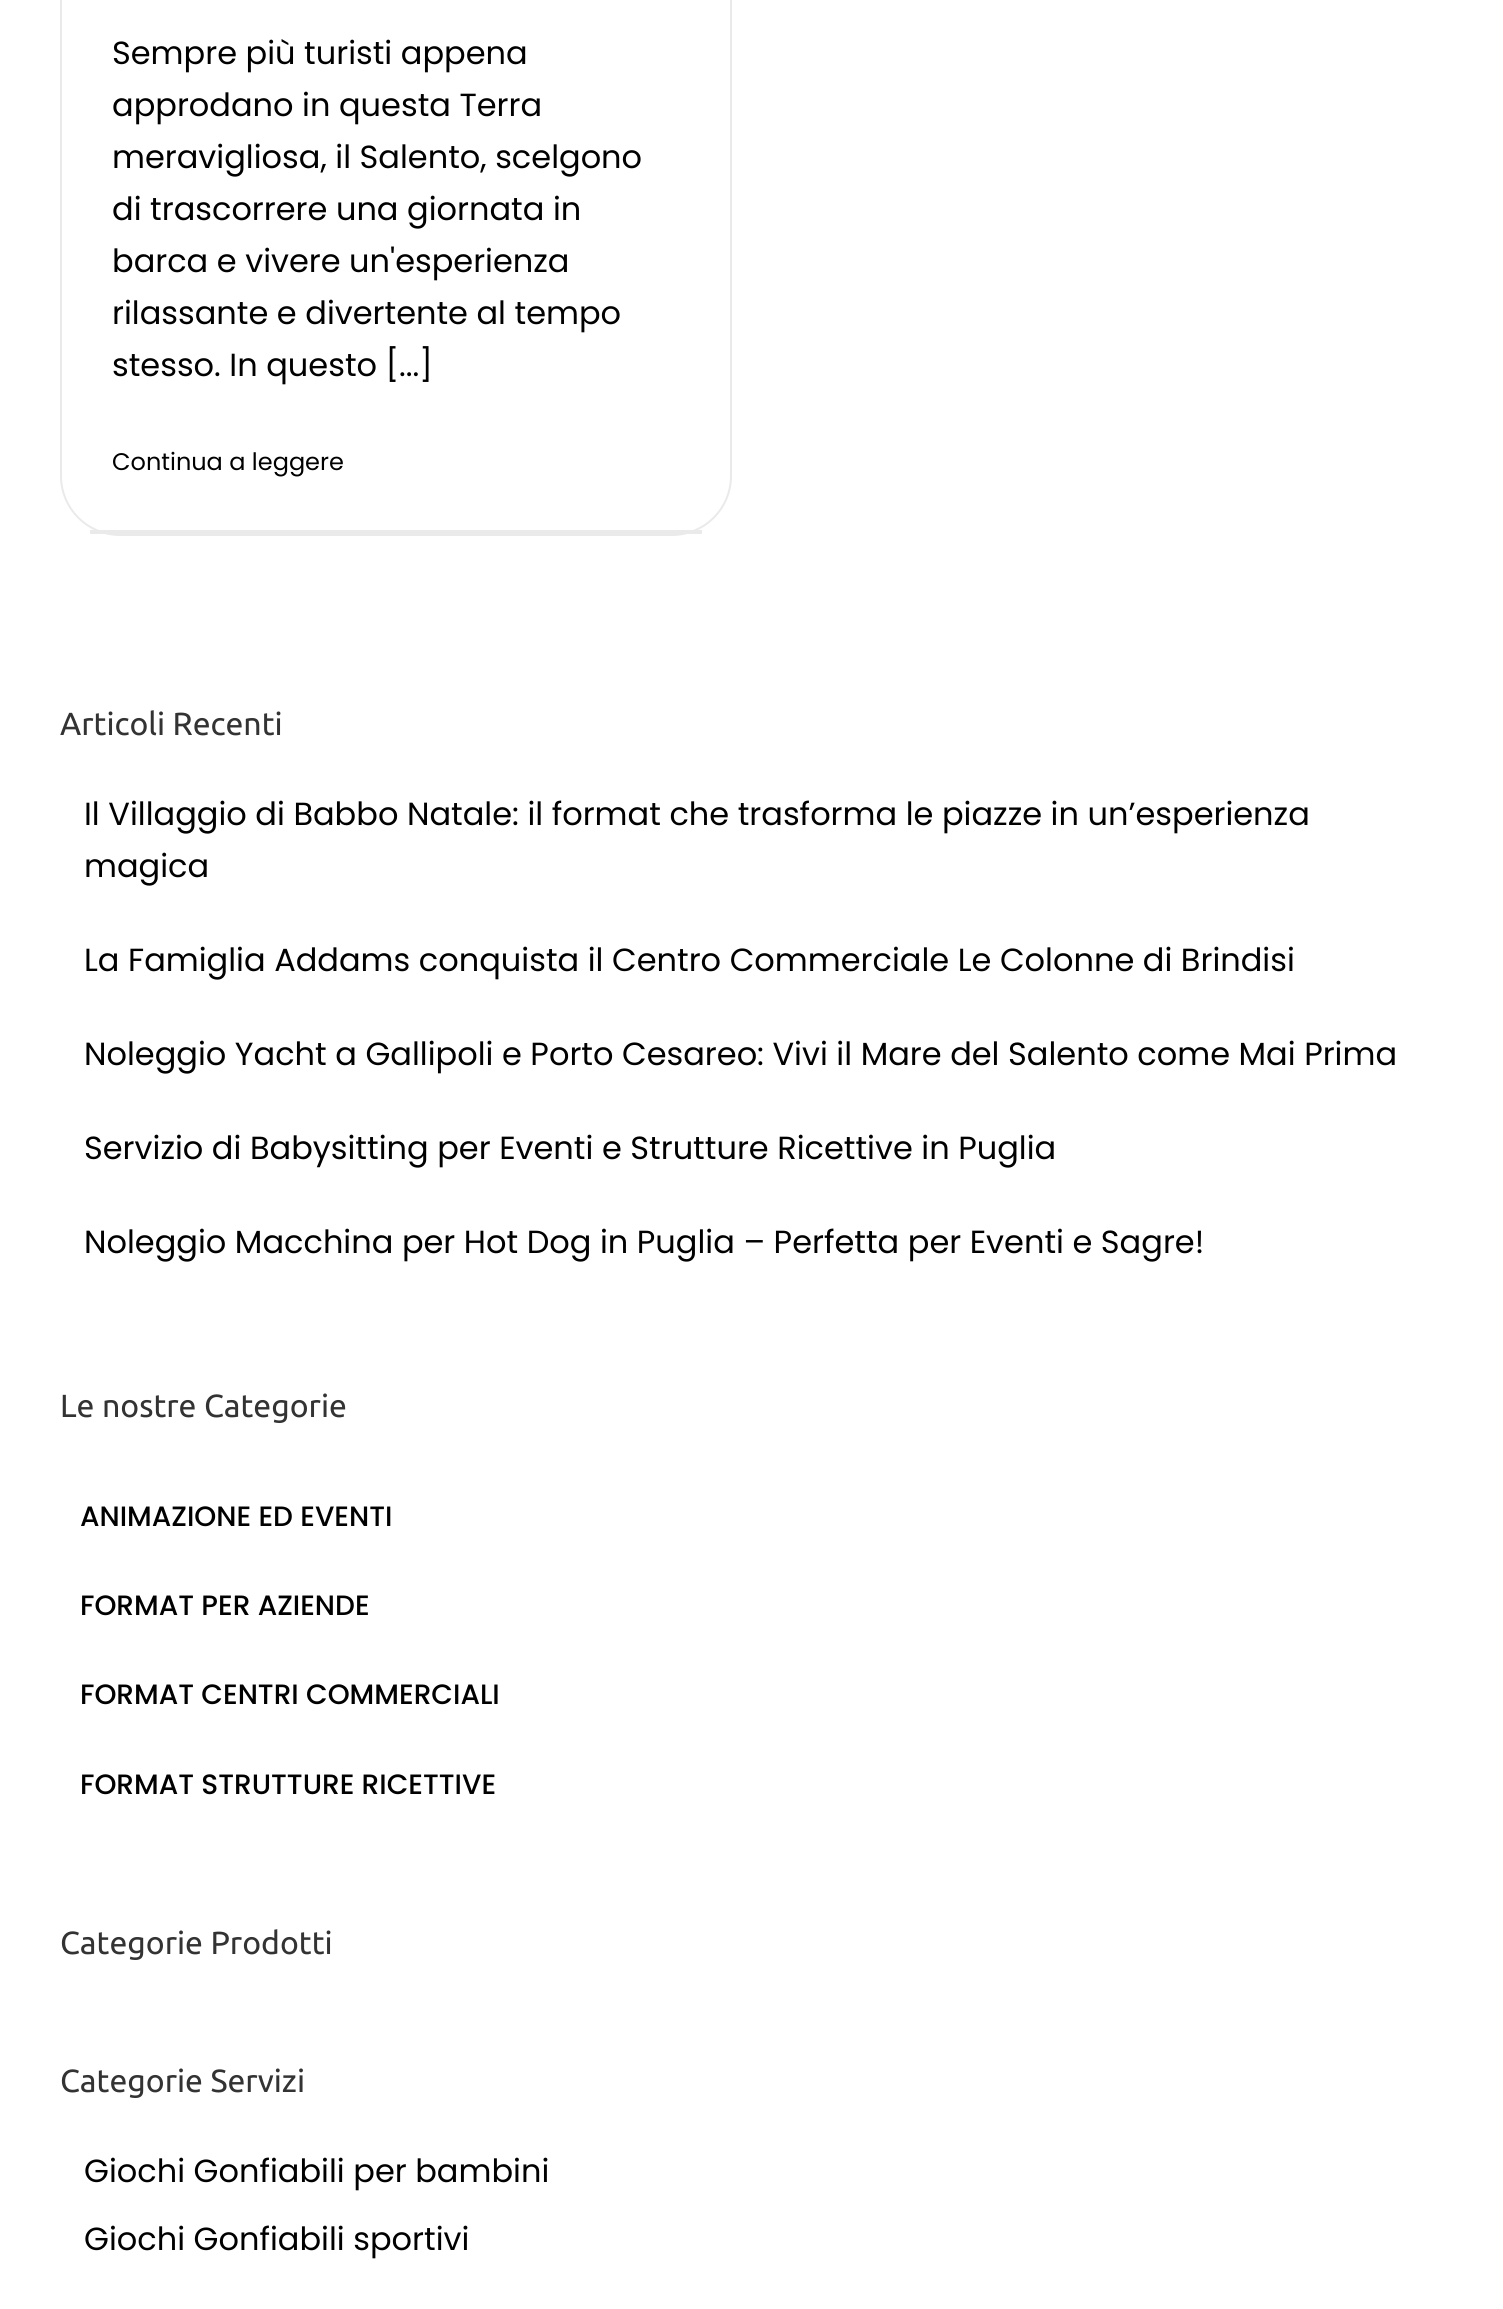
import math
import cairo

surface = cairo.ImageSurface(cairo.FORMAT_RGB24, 1503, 2309)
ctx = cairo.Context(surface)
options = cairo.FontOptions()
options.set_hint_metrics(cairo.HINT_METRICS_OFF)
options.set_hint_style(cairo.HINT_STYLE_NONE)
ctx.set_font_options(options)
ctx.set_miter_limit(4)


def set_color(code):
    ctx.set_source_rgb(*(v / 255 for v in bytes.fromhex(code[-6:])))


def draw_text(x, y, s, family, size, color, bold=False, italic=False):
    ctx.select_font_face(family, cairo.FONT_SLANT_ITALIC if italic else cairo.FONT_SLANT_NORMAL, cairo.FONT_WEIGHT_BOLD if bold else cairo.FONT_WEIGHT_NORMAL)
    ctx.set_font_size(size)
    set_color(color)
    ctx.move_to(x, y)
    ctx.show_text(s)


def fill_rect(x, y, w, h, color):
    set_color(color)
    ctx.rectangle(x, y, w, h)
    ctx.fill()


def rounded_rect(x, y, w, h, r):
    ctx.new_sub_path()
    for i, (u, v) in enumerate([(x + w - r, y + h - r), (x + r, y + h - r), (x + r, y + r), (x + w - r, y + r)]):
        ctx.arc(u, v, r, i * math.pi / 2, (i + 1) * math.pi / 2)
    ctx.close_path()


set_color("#ffffff")
ctx.paint()
rounded_rect(61, -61, 670, 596, 59)
set_color("#ebeaea")
ctx.stroke()
fill_rect(90, 530, 612, 4, "#ebeaea")
draw_text(112, 64, "Sempre più turisti appena", "Poppins", 32, "#000000")
draw_text(112, 116, "approdano in questa Terra", "Poppins", 32, "#000000")
draw_text(112, 168, "meravigliosa, il Salento, scelgono", "Poppins", 32, "#000000")
draw_text(112, 220, "di trascorrere una giornata in", "Poppins", 32, "#000000")
draw_text(112, 272, "barca e vivere un'esperienza", "Poppins", 32, "#000000")
draw_text(112, 324, "rilassante e divertente al tempo", "Poppins", 32, "#000000")
draw_text(112, 376, "stesso. In questo [...]", "Poppins", 32, "#000000")
draw_text(112, 470, "Continua a leggere", "Poppins", 24, "#000000")
draw_text(60, 735, "Articoli Recenti", "Ubuntu", 32, "#333333")
draw_text(84, 825, "Il Villaggio di Babbo Natale: il format che trasforma le piazze in un’esperienza", "Poppins", 32, "#000000")
draw_text(84, 877, "magica", "Poppins", 32, "#000000")
draw_text(84, 971, "La Famiglia Addams conquista il Centro Commerciale Le Colonne di Brindisi", "Poppins", 32, "#000000")
draw_text(84, 1065, "Noleggio Yacht a Gallipoli e Porto Cesareo: Vivi il Mare del Salento come Mai Prima", "Poppins", 32, "#000000")
draw_text(84, 1159, "Servizio di Babysitting per Eventi e Strutture Ricettive in Puglia", "Poppins", 32, "#000000")
draw_text(84, 1253, "Noleggio Macchina per Hot Dog in Puglia – Perfetta per Eventi e Sagre!", "Poppins", 32, "#000000")
draw_text(60, 1417, "Le nostre Categorie", "Ubuntu", 32, "#333333")
draw_text(80, 1526, "ANIMAZIONE ED EVENTI", "Poppins Medium", 28, "#000000")
draw_text(80, 1615, "FORMAT PER AZIENDE", "Poppins Medium", 28, "#000000")
draw_text(80, 1704, "FORMAT CENTRI COMMERCIALI", "Poppins Medium", 28, "#000000")
draw_text(80, 1794, "FORMAT STRUTTURE RICETTIVE", "Poppins Medium", 28, "#000000")
draw_text(60, 1954, "Categorie Prodotti", "Ubuntu", 32, "#333333")
draw_text(60, 2092, "Categorie Servizi", "Ubuntu", 32, "#333333")
draw_text(84, 2182, "Giochi Gonfiabili per bambini", "Poppins", 32, "#000000")
draw_text(84, 2250, "Giochi Gonfiabili sportivi", "Poppins", 32, "#000000")
surface.write_to_png("output.png")
